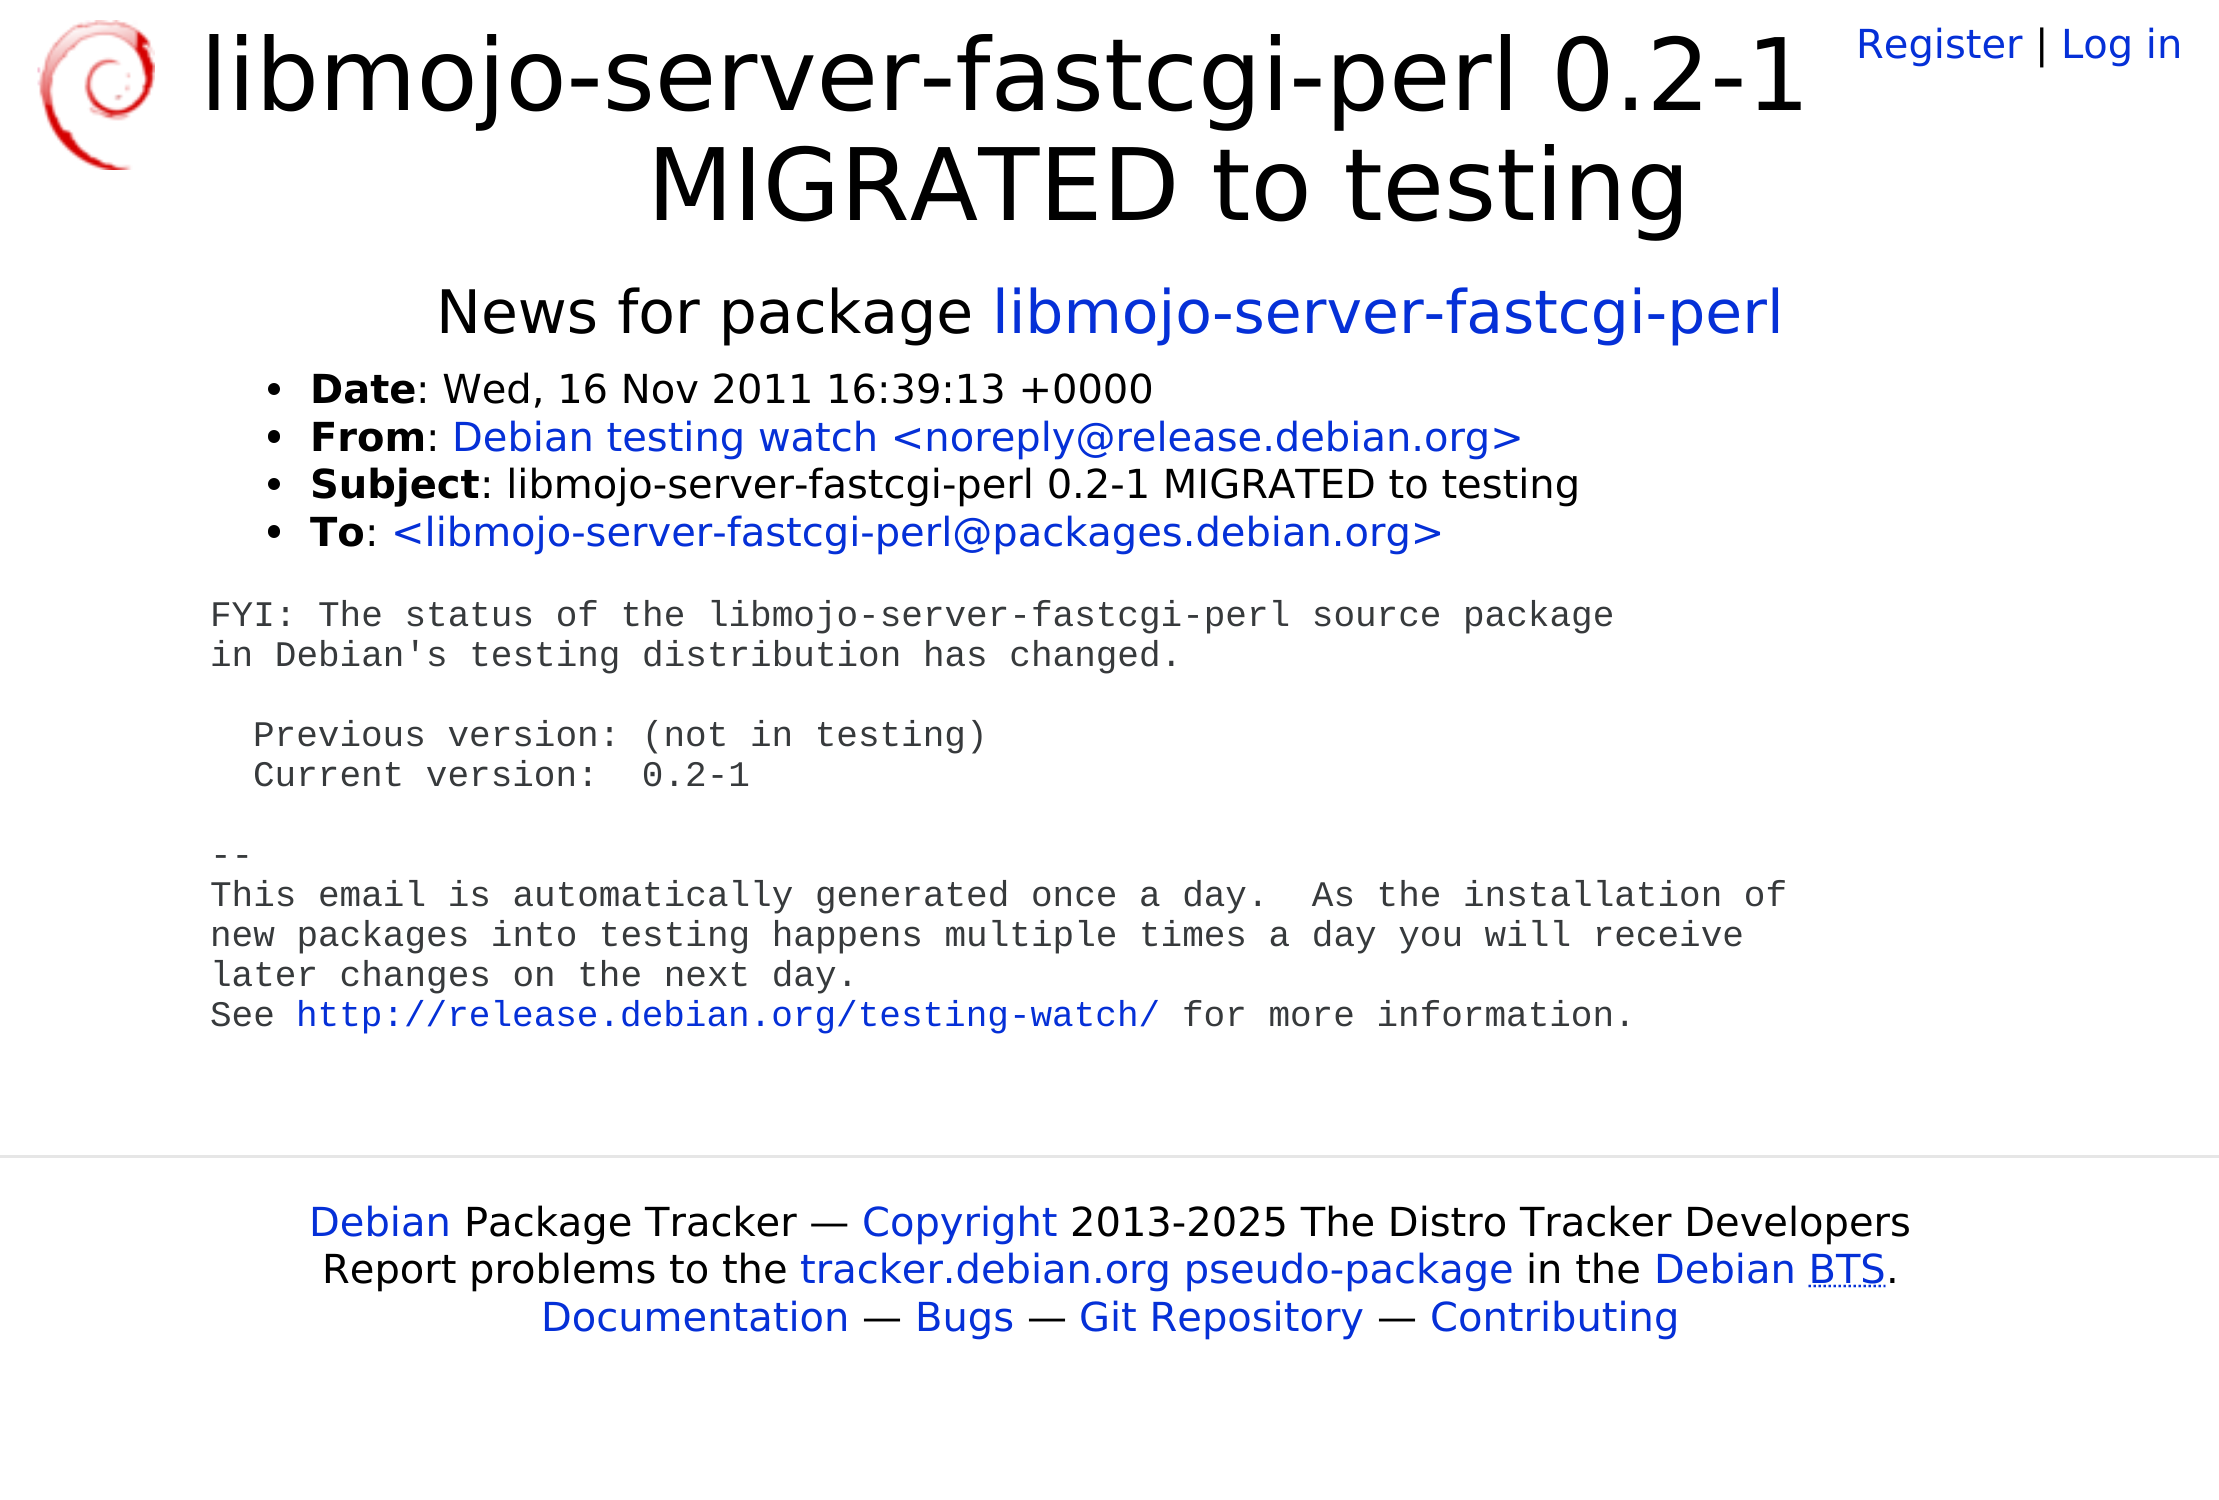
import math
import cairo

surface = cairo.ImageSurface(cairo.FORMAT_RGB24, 2219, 1500)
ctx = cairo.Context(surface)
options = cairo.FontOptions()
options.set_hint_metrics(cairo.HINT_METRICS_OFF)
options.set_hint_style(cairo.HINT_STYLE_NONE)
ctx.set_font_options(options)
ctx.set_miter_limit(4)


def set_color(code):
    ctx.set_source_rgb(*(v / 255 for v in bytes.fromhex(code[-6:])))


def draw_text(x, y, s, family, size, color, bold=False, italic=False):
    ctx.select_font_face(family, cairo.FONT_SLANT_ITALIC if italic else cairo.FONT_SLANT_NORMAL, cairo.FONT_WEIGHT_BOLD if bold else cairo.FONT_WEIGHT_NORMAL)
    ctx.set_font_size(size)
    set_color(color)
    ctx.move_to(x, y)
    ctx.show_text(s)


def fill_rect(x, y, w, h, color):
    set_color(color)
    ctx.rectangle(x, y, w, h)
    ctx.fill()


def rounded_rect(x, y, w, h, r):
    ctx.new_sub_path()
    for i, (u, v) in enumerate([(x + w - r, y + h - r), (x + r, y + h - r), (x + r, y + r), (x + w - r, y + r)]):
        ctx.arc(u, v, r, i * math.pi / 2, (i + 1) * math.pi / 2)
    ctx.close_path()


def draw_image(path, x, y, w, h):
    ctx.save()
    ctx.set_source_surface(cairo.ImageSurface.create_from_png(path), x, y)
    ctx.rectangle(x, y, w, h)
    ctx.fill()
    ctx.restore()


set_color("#ffffff")
ctx.paint()
draw_image("assets/img1.png", 37, 20, 118, 150)
draw_text(200, 110, "libmojo-server-fastcgi-perl 0.2-1", "DejaVu Sans", 100, "#000000")
draw_text(647, 220, "MIGRATED to testing", "DejaVu Sans", 100, "#000000")
draw_text(1856, 58, "Register", "DejaVu Sans", 40, "#0530d7")
draw_text(2035, 58, "|", "DejaVu Sans", 40, "#000000")
draw_text(2061, 58, "Log in", "DejaVu Sans", 40, "#0530d7")
draw_text(436, 333, "News for package", "DejaVu Sans", 60, "#000000")
draw_text(992, 333, "libmojo-server-fastcgi-perl", "DejaVu Sans", 60, "#0530d7")
set_color("#000000")
ctx.new_path()
ctx.arc(274, 389, 6, 0, 2 * math.pi)
ctx.fill()
draw_text(310, 403, "Date", "DejaVu Sans", 40, "#000000", bold=True)
draw_text(416, 403, ": Wed, 16 Nov 2011 16:39:13 +0000", "DejaVu Sans", 40, "#000000")
rounded_rect(268, 430, 12, 13, 6)
ctx.fill()
draw_text(310, 451, "From", "DejaVu Sans", 40, "#000000", bold=True)
draw_text(426, 451, ":", "DejaVu Sans", 40, "#000000")
draw_text(452, 451, "Debian testing watch <noreply@release.debian.org>", "DejaVu Sans", 40, "#0530d7")
set_color("#000000")
ctx.new_path()
ctx.arc(274, 484, 6, 0, 2 * math.pi)
ctx.fill()
draw_text(310, 498, "Subject", "DejaVu Sans", 40, "#000000", bold=True)
draw_text(480, 498, ": libmojo-server-fastcgi-perl 0.2-1 MIGRATED to testing", "DejaVu Sans", 40, "#000000")
rounded_rect(268, 525, 12, 13, 6)
ctx.fill()
draw_text(310, 546, "To", "DejaVu Sans", 40, "#000000", bold=True)
draw_text(365, 546, ":", "DejaVu Sans", 40, "#000000")
draw_text(391, 546, "<libmojo-server-fastcgi-perl@packages.debian.org>", "DejaVu Sans", 40, "#0530d7")
draw_text(210, 626, "FYI: The status of the libmojo-server-fastcgi-perl source package", "Liberation Mono", 36, "#373a3c")
draw_text(210, 666, "in Debian's testing distribution has changed.", "Liberation Mono", 36, "#373a3c")
draw_text(253, 746, "Previous version: (not in testing)", "Liberation Mono", 36, "#373a3c")
draw_text(253, 786, "Current version:  0.2-1", "Liberation Mono", 36, "#373a3c")
draw_text(210, 866, "--", "Liberation Mono", 36, "#373a3c")
draw_text(210, 906, "This email is automatically generated once a day.  As the installation of", "Liberation Mono", 36, "#373a3c")
draw_text(210, 946, "new packages into testing happens multiple times a day you will receive", "Liberation Mono", 36, "#373a3c")
draw_text(210, 986, "later changes on the next day.", "Liberation Mono", 36, "#373a3c")
draw_text(210, 1026, "See", "Liberation Mono", 36, "#373a3c")
draw_text(296, 1026, "http://release.debian.org/testing-watch/", "Liberation Mono", 36, "#0530d7")
draw_text(1182, 1026, "for more information.", "Liberation Mono", 36, "#373a3c")
fill_rect(0, 1155, 2219, 3, "#e6e6e6")
draw_text(309, 1236, "Debian", "DejaVu Sans", 40, "#0530d7")
draw_text(464, 1236, "Package Tracker —", "DejaVu Sans", 40, "#000000")
draw_text(862, 1236, "Copyright", "DejaVu Sans", 40, "#0530d7")
draw_text(1070, 1236, "2013-2025 The Distro Tracker Developers", "DejaVu Sans", 40, "#000000")
draw_text(322, 1283, "Report problems to the", "DejaVu Sans", 40, "#000000")
draw_text(800, 1283, "tracker.debian.org pseudo-package", "DejaVu Sans", 40, "#0530d7")
draw_text(1526, 1283, "in the", "DejaVu Sans", 40, "#000000")
draw_text(1654, 1283, "Debian BTS", "DejaVu Sans", 40, "#0530d7")
ctx.new_path()
ctx.move_to(1808.5, 1286)
ctx.line_to(1885.5, 1286)
ctx.set_line_width(2.5)
ctx.set_dash([2.5, 2.5])
ctx.stroke()
draw_text(1886, 1283, ".", "DejaVu Sans", 40, "#000000")
draw_text(541, 1331, "Documentation", "DejaVu Sans", 40, "#0530d7")
draw_text(862, 1331, "—", "DejaVu Sans", 40, "#000000")
draw_text(915, 1331, "Bugs", "DejaVu Sans", 40, "#0530d7")
draw_text(1027, 1331, "—", "DejaVu Sans", 40, "#000000")
draw_text(1079, 1331, "Git Repository", "DejaVu Sans", 40, "#0530d7")
draw_text(1377, 1331, "—", "DejaVu Sans", 40, "#000000")
draw_text(1430, 1331, "Contributing", "DejaVu Sans", 40, "#0530d7")
surface.write_to_png("output.png")
